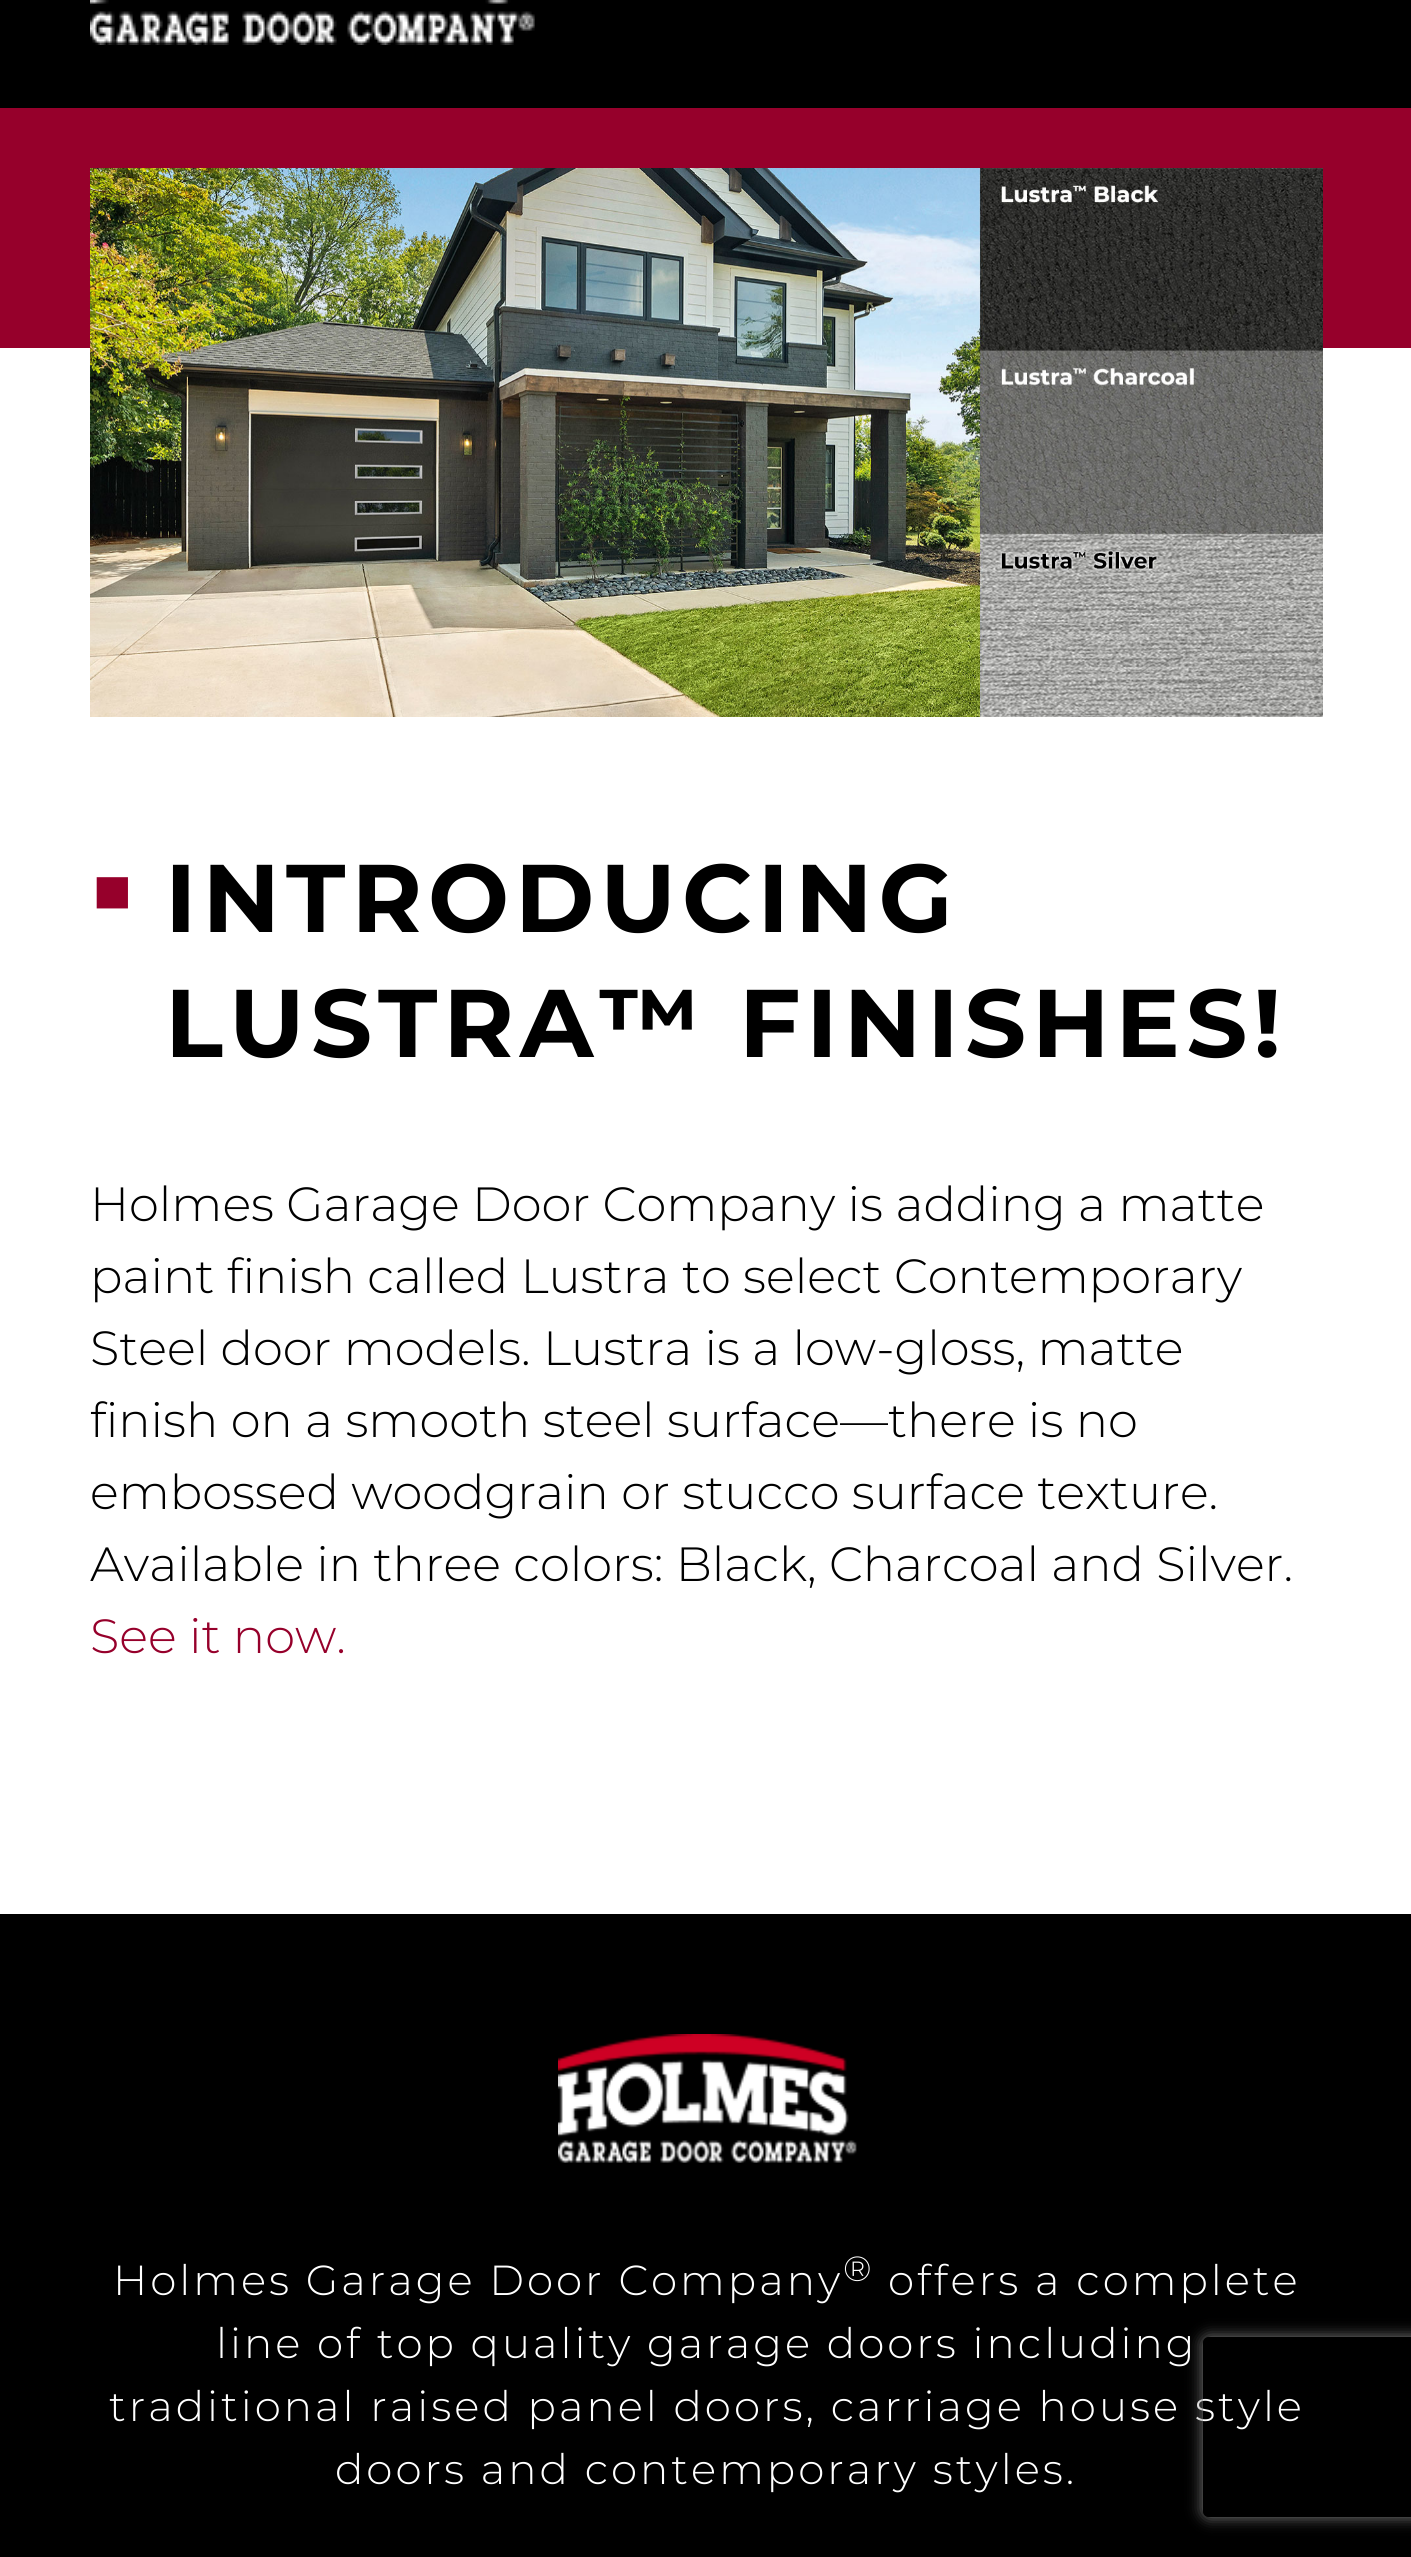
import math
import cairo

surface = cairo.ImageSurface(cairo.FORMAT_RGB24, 1411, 2557)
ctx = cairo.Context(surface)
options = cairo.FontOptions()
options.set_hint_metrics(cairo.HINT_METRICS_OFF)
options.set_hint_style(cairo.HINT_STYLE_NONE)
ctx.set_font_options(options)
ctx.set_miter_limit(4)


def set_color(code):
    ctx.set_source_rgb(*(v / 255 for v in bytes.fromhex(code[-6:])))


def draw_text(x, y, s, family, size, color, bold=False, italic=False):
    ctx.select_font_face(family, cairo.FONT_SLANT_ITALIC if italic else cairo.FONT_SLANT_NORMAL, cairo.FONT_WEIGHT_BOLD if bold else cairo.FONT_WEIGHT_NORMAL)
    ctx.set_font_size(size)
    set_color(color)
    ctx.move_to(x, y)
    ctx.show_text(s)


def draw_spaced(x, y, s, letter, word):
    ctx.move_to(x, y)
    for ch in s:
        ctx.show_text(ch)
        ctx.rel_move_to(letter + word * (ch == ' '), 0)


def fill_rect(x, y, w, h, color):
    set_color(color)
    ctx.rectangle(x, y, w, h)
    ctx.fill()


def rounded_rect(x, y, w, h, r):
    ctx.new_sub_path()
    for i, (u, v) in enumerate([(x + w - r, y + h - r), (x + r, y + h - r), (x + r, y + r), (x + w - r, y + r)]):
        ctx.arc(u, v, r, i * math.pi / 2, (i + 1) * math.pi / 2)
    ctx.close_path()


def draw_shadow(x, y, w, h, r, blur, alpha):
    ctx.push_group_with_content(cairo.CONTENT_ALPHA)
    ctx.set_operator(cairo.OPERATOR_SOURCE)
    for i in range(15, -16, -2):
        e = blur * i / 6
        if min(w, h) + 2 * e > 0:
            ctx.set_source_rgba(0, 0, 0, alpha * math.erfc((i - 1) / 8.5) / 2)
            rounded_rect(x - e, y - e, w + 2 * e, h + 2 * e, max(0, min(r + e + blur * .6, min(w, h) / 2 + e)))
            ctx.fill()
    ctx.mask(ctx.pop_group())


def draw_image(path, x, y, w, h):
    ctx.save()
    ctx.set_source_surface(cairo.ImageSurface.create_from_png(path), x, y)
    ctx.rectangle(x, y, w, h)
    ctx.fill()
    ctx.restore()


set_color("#ffffff")
ctx.paint()
fill_rect(0, 0, 1411, 108, "#000000")
draw_image("assets/img1.png", 90, 0, 445, 45)
fill_rect(0, 108, 1411, 240, "#96002b")
draw_image("assets/img2.png", 90, 168, 1233, 549)
ctx.select_font_face("Liberation Sans", cairo.FONT_SLANT_NORMAL, cairo.FONT_WEIGHT_BOLD)
ctx.set_font_size(126)
draw_spaced(90, 932, "▪", 6, 0)
ctx.select_font_face("Montserrat", cairo.FONT_SLANT_NORMAL, cairo.FONT_WEIGHT_BOLD)
ctx.set_font_size(96)
set_color("#000000")
draw_spaced(165, 932, "INTRODUCING", 6, 0)
draw_spaced(165, 1057, "LUSTRA™ FINISHES!", 6, 0)
draw_text(90, 1221, "Holmes Garage Door Company is adding a matte", "Montserrat Light", 48, "#000000")
draw_text(90, 1293, "paint finish called Lustra to select Contemporary", "Montserrat Light", 48, "#000000")
draw_text(90, 1365, "Steel door models. Lustra is a low-gloss, matte", "Montserrat Light", 48, "#000000")
draw_text(90, 1437, "finish on a smooth steel surface—there is no", "Montserrat Light", 48, "#000000")
draw_text(90, 1509, "embossed woodgrain or stucco surface texture.", "Montserrat Light", 48, "#000000")
draw_text(90, 1581, "Available in three colors: Black, Charcoal and Silver.", "Montserrat Light", 48, "#000000")
draw_text(90, 1653, "See it now.", "Montserrat Light", 48, "#96002b")
fill_rect(0, 1914, 1411, 643, "#000000")
draw_image("assets/img3.png", 558, 2034, 299, 129)
ctx.set_font_size(42)
set_color("#ffffff")
draw_spaced(113, 2295, "Holmes Garage Door Company", 3, 0)
ctx.set_font_size(35)
draw_spaced(843, 2281, "®", 3, 0)
ctx.set_font_size(42)
draw_spaced(888, 2295, "offers a complete", 3, 0)
draw_spaced(216, 2358, "line of top quality garage doors including", 3, 0)
draw_spaced(109, 2421, "traditional raised panel doors, carriage house style", 3, 0)
draw_spaced(335, 2484, "doors and contemporary styles.", 3, 0)
ctx.save()
ctx.set_fill_rule(cairo.FILL_RULE_EVEN_ODD)
ctx.new_path()
ctx.move_to(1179, 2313)
ctx.line_to(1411, 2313)
ctx.line_to(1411, 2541)
ctx.line_to(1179, 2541)
ctx.close_path()
ctx.move_to(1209, 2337)
ctx.line_to(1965, 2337)
ctx.curve_to(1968.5, 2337, 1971, 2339.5, 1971, 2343)
ctx.line_to(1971, 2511)
ctx.curve_to(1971, 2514.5, 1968.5, 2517, 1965, 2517)
ctx.line_to(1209, 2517)
ctx.curve_to(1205.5, 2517, 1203, 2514.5, 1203, 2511)
ctx.line_to(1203, 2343)
ctx.curve_to(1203, 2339.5, 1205.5, 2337, 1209, 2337)
ctx.close_path()
ctx.clip()
set_color("#808080")
draw_shadow(1203, 2337, 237, 180, 6, 7.5, 1)
ctx.restore()
surface.write_to_png("output.png")
